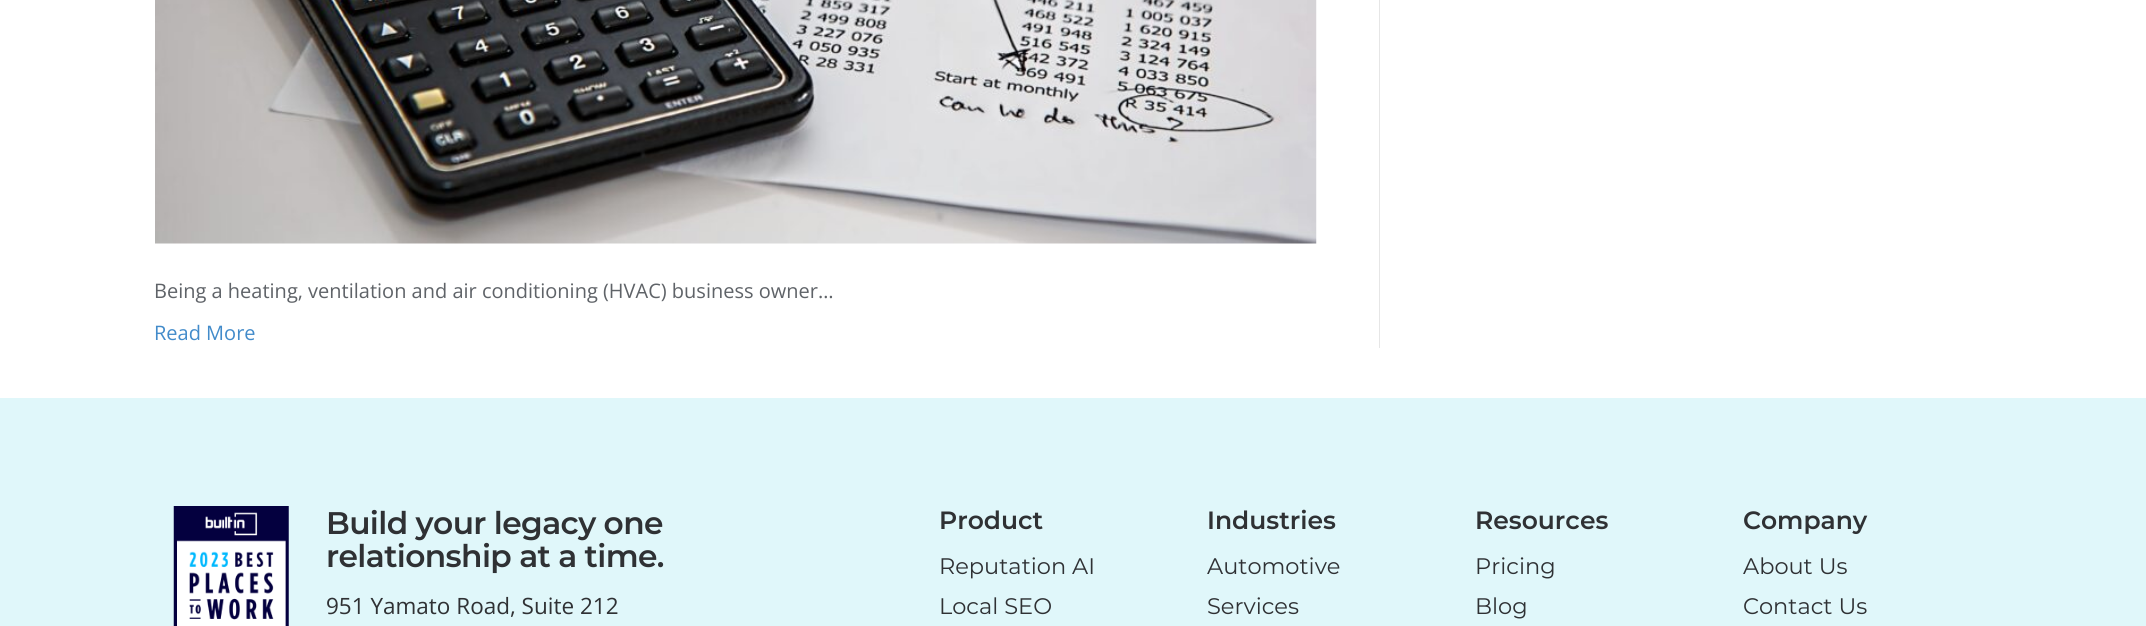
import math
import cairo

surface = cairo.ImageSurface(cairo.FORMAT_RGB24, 2146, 626)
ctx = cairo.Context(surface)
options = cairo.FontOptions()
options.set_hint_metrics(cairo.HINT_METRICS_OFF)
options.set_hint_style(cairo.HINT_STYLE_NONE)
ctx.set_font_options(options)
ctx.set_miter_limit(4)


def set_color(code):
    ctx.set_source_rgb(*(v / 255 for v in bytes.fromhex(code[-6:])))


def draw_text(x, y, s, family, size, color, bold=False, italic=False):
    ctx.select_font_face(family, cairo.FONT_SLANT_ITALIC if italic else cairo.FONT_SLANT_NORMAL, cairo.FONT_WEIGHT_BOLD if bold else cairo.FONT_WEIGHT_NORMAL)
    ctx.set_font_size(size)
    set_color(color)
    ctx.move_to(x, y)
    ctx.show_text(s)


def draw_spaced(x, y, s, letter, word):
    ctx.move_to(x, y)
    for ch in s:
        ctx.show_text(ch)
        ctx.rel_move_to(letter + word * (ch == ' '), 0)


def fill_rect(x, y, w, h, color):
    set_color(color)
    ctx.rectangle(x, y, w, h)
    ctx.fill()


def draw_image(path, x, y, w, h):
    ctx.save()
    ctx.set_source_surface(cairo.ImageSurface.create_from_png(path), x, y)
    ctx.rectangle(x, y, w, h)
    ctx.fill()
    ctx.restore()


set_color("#ffffff")
ctx.paint()
fill_rect(1379, 0, 1, 348, "#e6e6e6")
draw_image("assets/img1.png", 155, 0, 1162, 244)
draw_text(154, 298, "Being a heating, ventilation and air conditioning (HVAC) business owner…", "Open Sans", 20, "#5f6368")
draw_text(154, 340, "Read More", "Open Sans", 20, "#428bca")
fill_rect(0, 398, 2146, 228, "#e0f7fa")
draw_image("assets/img2.png", 173, 506, 116, 120)
ctx.select_font_face("Montserrat SemiBold")
ctx.set_font_size(31.25)
set_color("#2f3134")
draw_spaced(326, 534, "Build your legacy one", -0.6, 0)
draw_spaced(326, 567, "relationship at a time.", -0.6, 0)
draw_text(326, 614, "951 Yamato Road, Suite 212", "Open Sans", 22.5, "#2f3134")
draw_text(939, 529, "Product", "Montserrat SemiBold", 25, "#2f3134")
draw_text(939, 574, "Reputation AI", "Montserrat", 22.5, "#2f3134")
draw_text(939, 614, "Local SEO", "Montserrat", 22.5, "#2f3134")
draw_text(1207, 529, "Industries", "Montserrat SemiBold", 25, "#2f3134")
draw_text(1207, 574, "Automotive", "Montserrat", 22.5, "#2f3134")
draw_text(1207, 614, "Services", "Montserrat", 22.5, "#2f3134")
draw_text(1475, 529, "Resources", "Montserrat SemiBold", 25, "#2f3134")
draw_text(1475, 574, "Pricing", "Montserrat", 22.5, "#2f3134")
draw_text(1475, 614, "Blog", "Montserrat", 22.5, "#2f3134")
draw_text(1743, 529, "Company", "Montserrat SemiBold", 25, "#2f3134")
draw_text(1743, 574, "About Us", "Montserrat", 22.5, "#2f3134")
draw_text(1743, 614, "Contact Us", "Montserrat", 22.5, "#2f3134")
surface.write_to_png("output.png")
